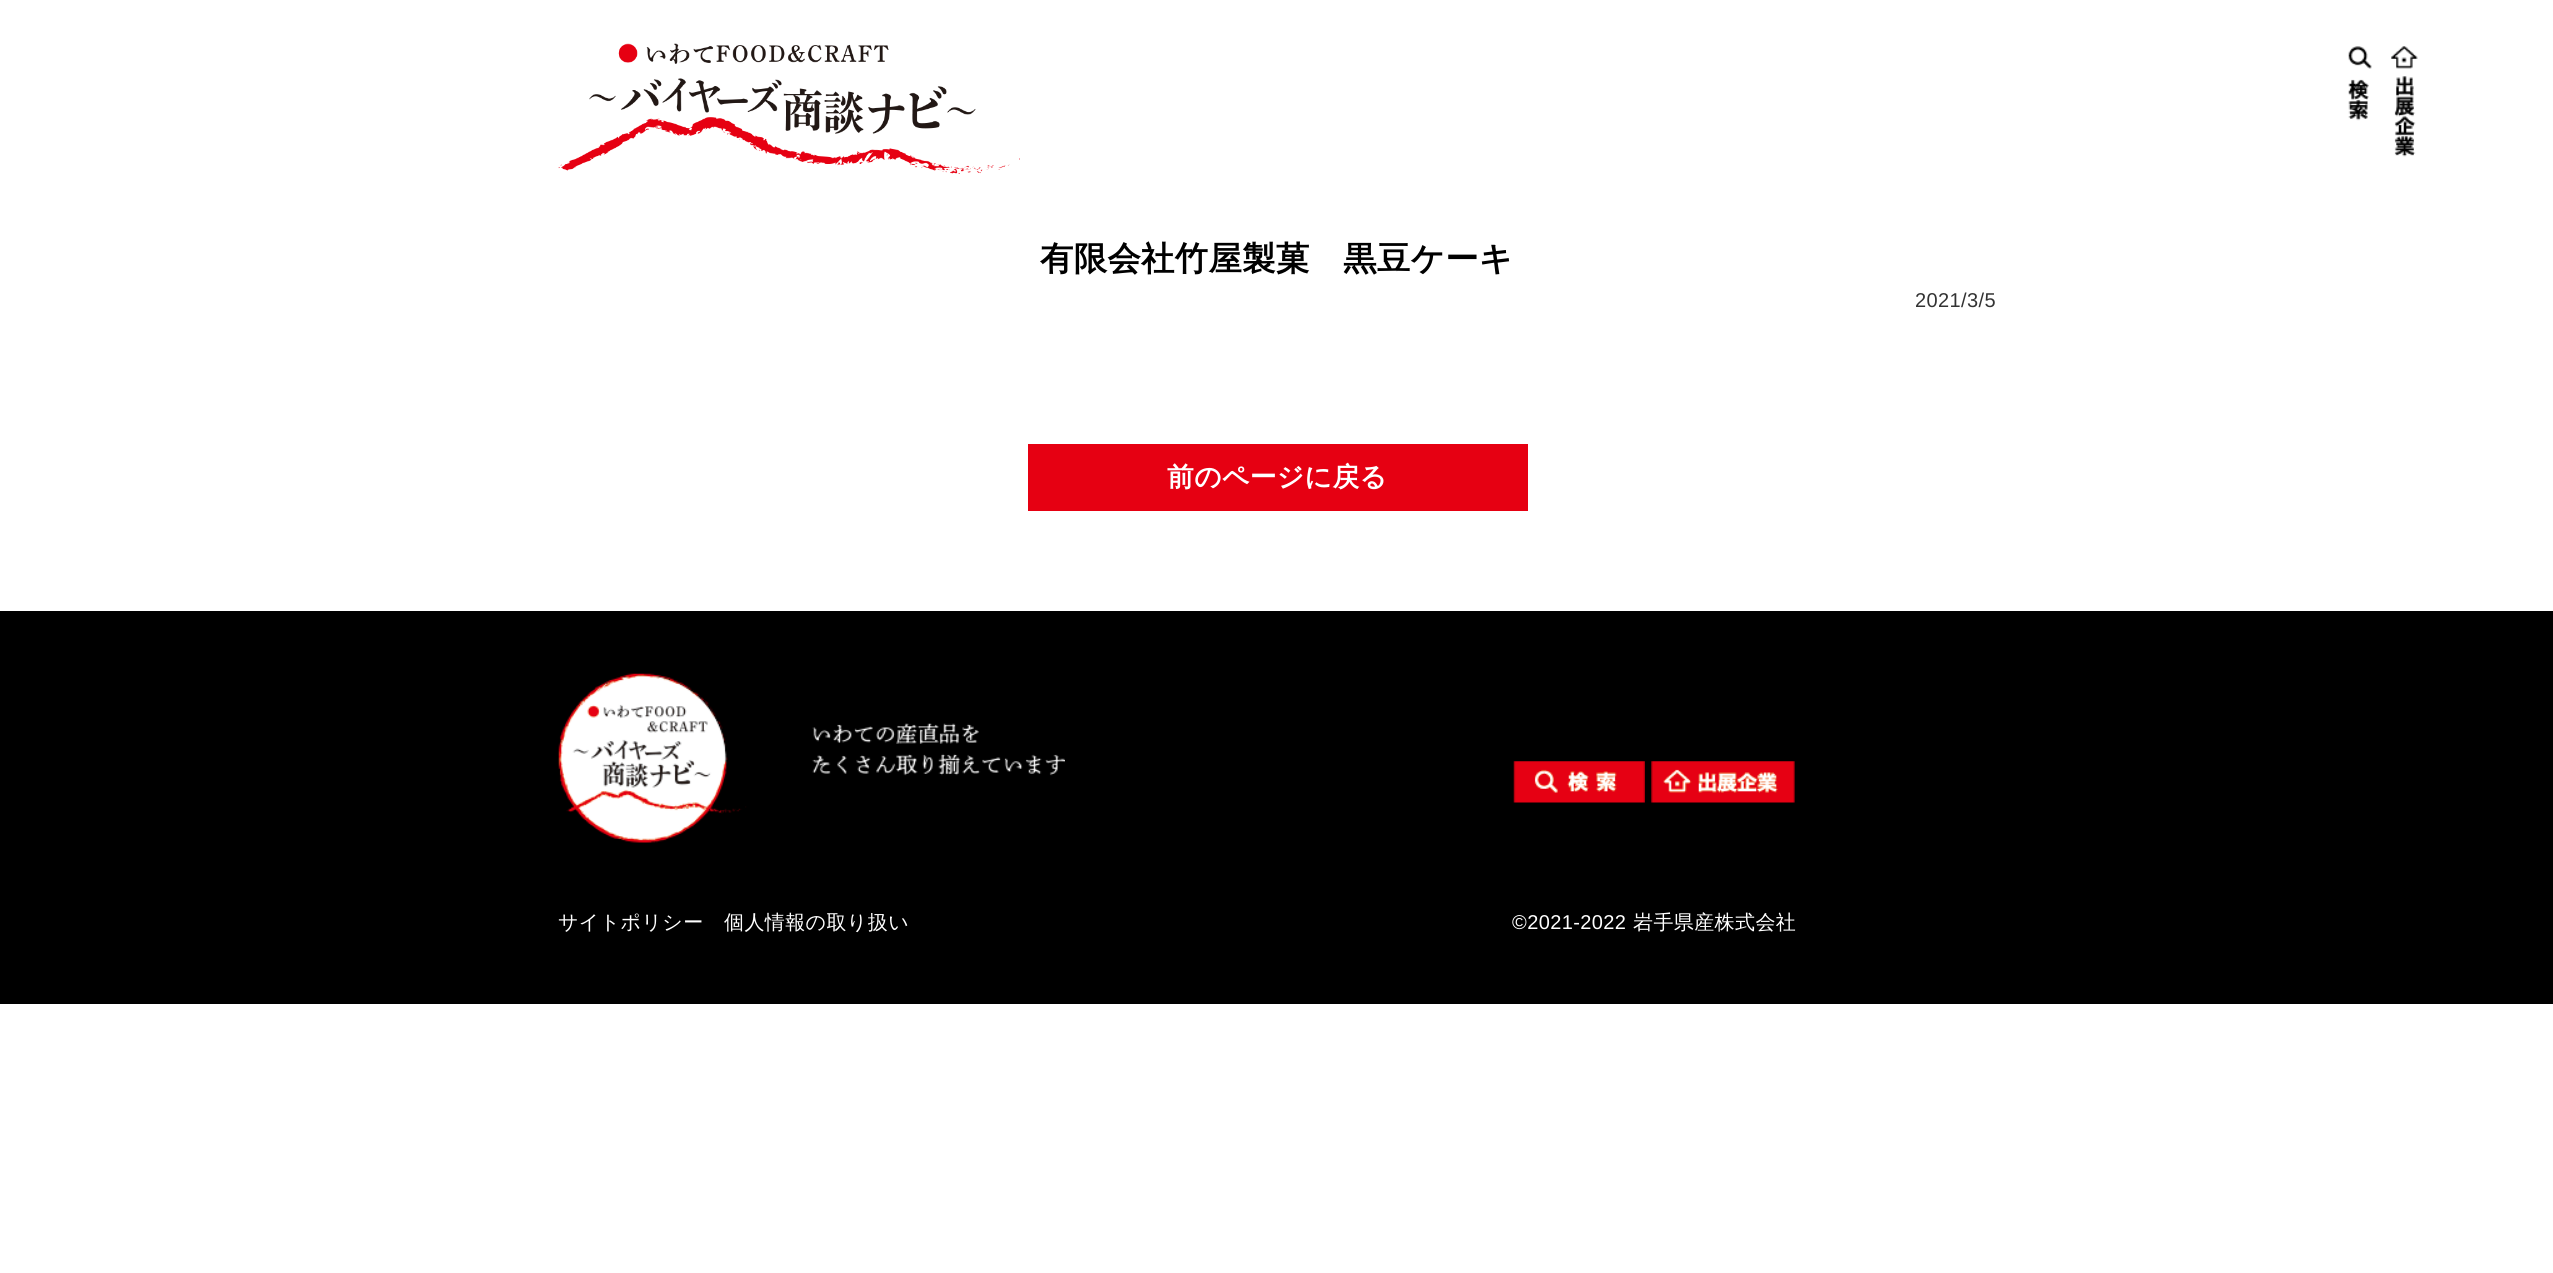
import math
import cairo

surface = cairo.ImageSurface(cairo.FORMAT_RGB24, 2553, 1273)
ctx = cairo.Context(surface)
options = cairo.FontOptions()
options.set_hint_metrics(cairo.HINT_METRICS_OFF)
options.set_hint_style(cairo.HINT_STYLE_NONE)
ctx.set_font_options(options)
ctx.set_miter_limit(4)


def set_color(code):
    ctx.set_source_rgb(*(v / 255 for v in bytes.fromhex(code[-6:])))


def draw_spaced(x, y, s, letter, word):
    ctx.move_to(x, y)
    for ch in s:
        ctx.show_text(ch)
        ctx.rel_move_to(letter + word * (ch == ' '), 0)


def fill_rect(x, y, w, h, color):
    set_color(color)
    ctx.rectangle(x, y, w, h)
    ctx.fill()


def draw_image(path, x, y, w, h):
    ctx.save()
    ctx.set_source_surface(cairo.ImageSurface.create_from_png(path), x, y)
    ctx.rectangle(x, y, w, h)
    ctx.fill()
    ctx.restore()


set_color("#ffffff")
ctx.paint()
draw_image("assets/img1.png", 558, 43, 462, 131)
draw_image("assets/img2.png", 2348, 46, 24, 75)
draw_image("assets/img3.png", 2391, 46, 27, 111)
ctx.select_font_face("WenQuanYi Zen Hei", cairo.FONT_SLANT_NORMAL, cairo.FONT_WEIGHT_BOLD)
ctx.set_font_size(33.3)
set_color("#000000")
draw_spaced(1040, 270, "有限会社竹屋製菓　黒豆ケーキ", 0.4, 0)
ctx.select_font_face("Liberation Sans")
ctx.set_font_size(20)
set_color("#333333")
draw_spaced(1915, 307, "2021/3/5", 0.4, 0)
fill_rect(1028, 444, 500, 67, "#e60012")
ctx.select_font_face("WenQuanYi Zen Hei", cairo.FONT_SLANT_NORMAL, cairo.FONT_WEIGHT_BOLD)
ctx.set_font_size(26.75)
set_color("#ffffff")
draw_spaced(1167, 486, "前のページに戻る", 0.4, 0)
fill_rect(0, 611, 2553, 393, "#000000")
draw_image("assets/img4.png", 558, 673, 507, 170)
draw_image("assets/img5.png", 1513, 761, 132, 42)
draw_image("assets/img6.png", 1651, 761, 144, 42)
ctx.select_font_face("WenQuanYi Zen Hei Medium")
ctx.set_font_size(20)
set_color("#ffffff")
draw_spaced(558, 929, "サイトポリシー", 0.4, 0)
draw_spaced(724, 929, "個人情報の取り扱い", 0.4, 0)
ctx.select_font_face("Liberation Sans")
draw_spaced(1512, 929, "©2021-2022", 0.4, 0)
ctx.select_font_face("WenQuanYi Zen Hei Medium")
draw_spaced(1633, 929, "岩手県産株式会社", 0.4, 0)
surface.write_to_png("output.png")
